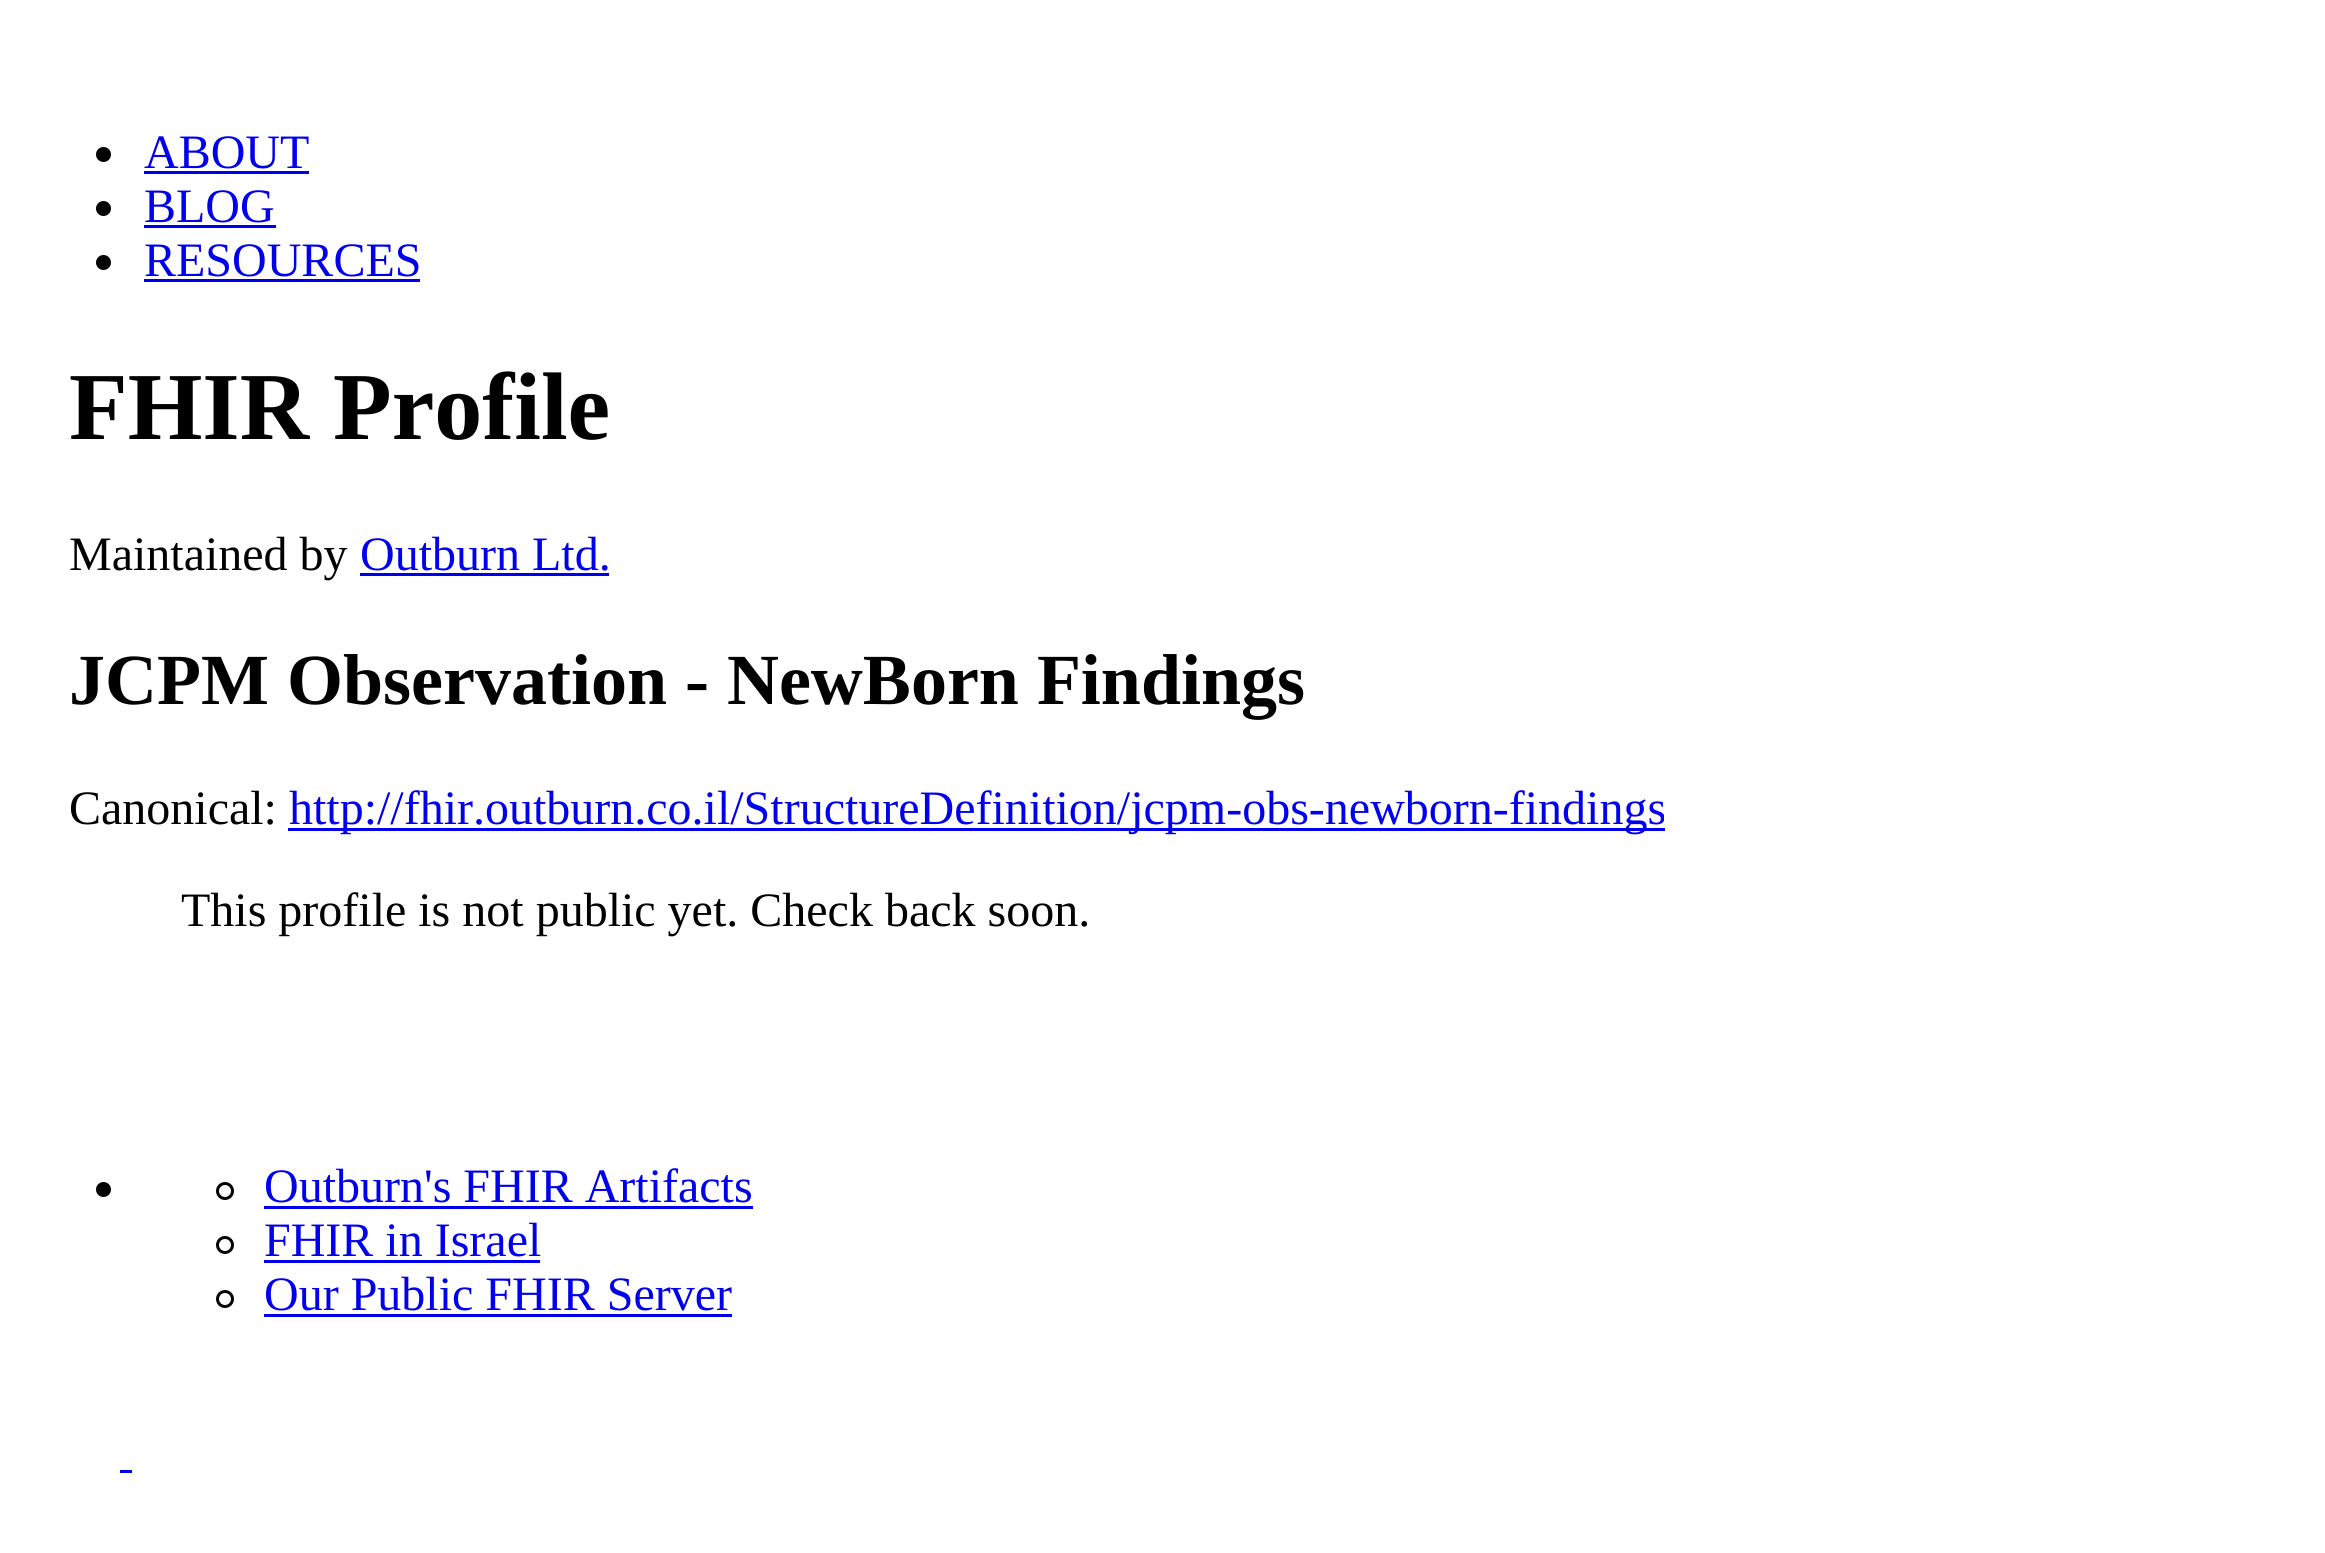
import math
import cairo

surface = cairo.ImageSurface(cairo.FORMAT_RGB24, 2325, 1553)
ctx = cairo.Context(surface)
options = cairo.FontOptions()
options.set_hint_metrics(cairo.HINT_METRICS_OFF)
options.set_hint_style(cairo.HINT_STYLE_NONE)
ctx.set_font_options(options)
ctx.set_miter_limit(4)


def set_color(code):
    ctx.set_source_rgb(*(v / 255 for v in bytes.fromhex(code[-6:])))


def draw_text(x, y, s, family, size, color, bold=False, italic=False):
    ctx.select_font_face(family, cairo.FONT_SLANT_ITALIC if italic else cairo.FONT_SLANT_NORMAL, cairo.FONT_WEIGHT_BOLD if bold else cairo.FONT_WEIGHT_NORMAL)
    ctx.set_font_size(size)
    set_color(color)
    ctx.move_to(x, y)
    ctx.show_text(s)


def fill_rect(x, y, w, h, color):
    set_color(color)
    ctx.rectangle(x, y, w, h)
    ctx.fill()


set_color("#ffffff")
ctx.paint()
set_color("#000000")
ctx.arc(103.5, 154.5, 7.5, 0, 2 * math.pi)
ctx.fill()
draw_text(144, 168, "ABOUT", "Liberation Serif", 48, "#0000ee")
fill_rect(144, 171, 165, 3, "#0000ee")
set_color("#000000")
ctx.new_path()
ctx.arc(103.5, 208.5, 7.5, 0, 2 * math.pi)
ctx.fill()
draw_text(144, 222, "BLOG", "Liberation Serif", 48, "#0000ee")
fill_rect(144, 225, 132, 3, "#0000ee")
set_color("#000000")
ctx.new_path()
ctx.arc(103.5, 262.5, 7.5, 0, 2 * math.pi)
ctx.fill()
draw_text(144, 276, "RESOURCES", "Liberation Serif", 48, "#0000ee")
fill_rect(144, 279, 276, 3, "#0000ee")
draw_text(69, 439, "FHIR Profile", "Liberation Serif", 96, "#000000", bold=True)
draw_text(69, 570, "Maintained by", "Liberation Serif", 48, "#000000")
draw_text(360, 570, "Outburn Ltd.", "Liberation Serif", 48, "#0000ee")
fill_rect(360, 573, 249, 3, "#0000ee")
draw_text(69, 704, "JCPM Observation - NewBorn Findings", "Liberation Serif", 72, "#000000", bold=True)
draw_text(69, 824, "Canonical:", "Liberation Serif", 48, "#000000")
fill_rect(288, 828, 1377, 3, "#0000ee")
draw_text(289, 824, "http://fhir.outburn.co.il/StructureDefinition/jcpm-obs-newborn-findings", "Liberation Serif", 48, "#0000ee")
draw_text(181, 926, "This profile is not public yet. Check back soon.", "Liberation Serif", 48, "#000000")
ctx.new_path()
ctx.arc(103.5, 1189.5, 7.5, 0, 2 * math.pi)
ctx.fill()
ctx.arc(225, 1191, 7.5, 0, 2 * math.pi)
ctx.set_line_width(3)
ctx.stroke()
draw_text(264, 1202, "Outburn's FHIR Artifacts", "Liberation Serif", 48, "#0000ee")
fill_rect(264, 1206, 489, 3, "#0000ee")
ctx.new_path()
ctx.arc(225, 1245, 7.5, 0, 2 * math.pi)
set_color("#000000")
ctx.stroke()
draw_text(264, 1256, "FHIR in Israel", "Liberation Serif", 48, "#0000ee")
fill_rect(264, 1260, 276, 3, "#0000ee")
ctx.new_path()
ctx.arc(225, 1299, 7.5, 0, 2 * math.pi)
set_color("#000000")
ctx.stroke()
draw_text(264, 1310, "Our Public FHIR Server", "Liberation Serif", 48, "#0000ee")
fill_rect(264, 1314, 468, 3, "#0000ee")
fill_rect(120, 1470, 12, 3, "#0000ee")
surface.write_to_png("output.png")
